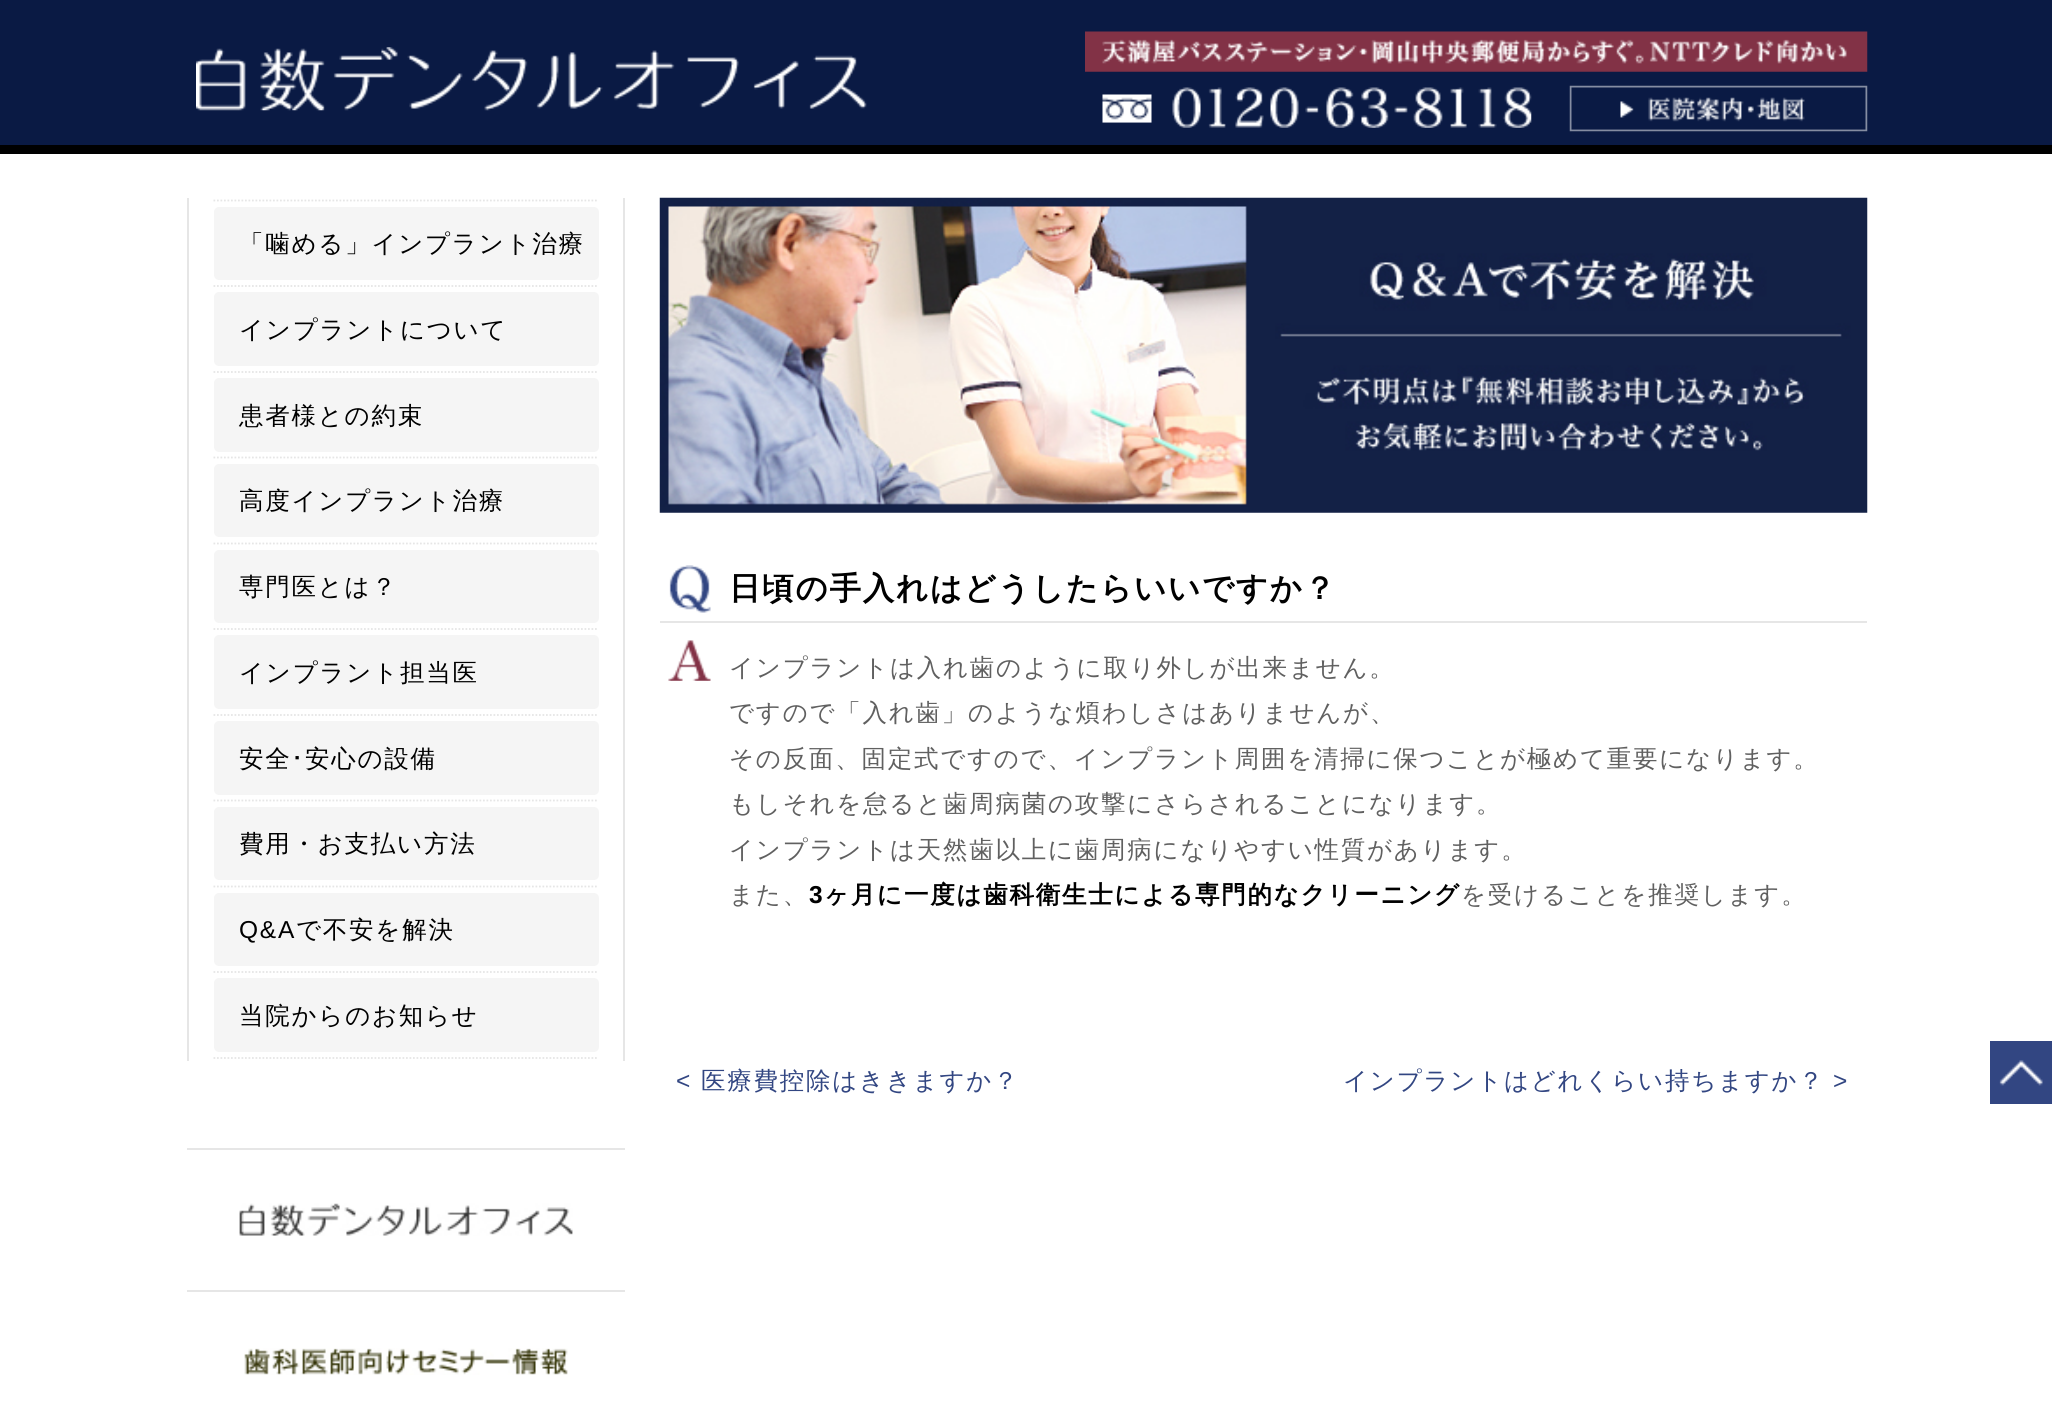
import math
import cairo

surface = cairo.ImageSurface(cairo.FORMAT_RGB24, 2052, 1405)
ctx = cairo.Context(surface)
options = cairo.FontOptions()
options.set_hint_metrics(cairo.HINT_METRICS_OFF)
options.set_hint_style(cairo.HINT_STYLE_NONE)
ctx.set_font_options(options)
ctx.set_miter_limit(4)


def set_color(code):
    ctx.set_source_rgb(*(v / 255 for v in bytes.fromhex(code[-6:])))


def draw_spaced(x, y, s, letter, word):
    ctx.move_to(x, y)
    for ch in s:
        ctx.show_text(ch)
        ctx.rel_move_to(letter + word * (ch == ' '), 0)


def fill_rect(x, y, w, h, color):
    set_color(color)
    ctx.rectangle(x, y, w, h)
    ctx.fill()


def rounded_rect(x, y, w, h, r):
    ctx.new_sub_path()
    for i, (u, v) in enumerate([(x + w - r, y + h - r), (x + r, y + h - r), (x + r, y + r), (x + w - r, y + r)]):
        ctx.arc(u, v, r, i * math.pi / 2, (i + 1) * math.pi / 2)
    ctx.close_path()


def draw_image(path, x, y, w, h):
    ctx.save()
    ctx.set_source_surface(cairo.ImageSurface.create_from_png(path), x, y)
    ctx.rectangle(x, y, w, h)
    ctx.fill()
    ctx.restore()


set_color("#ffffff")
ctx.paint()
fill_rect(0, 0, 2052, 145, "#0a1a44")
fill_rect(0, 145, 2052, 9, "#000000")
draw_image("assets/img1.png", 196, 47, 671, 64)
draw_image("assets/img2.png", 1085, 31, 783, 41)
draw_image("assets/img3.png", 1102, 87, 430, 41)
draw_image("assets/img4.png", 1569, 85, 299, 47)
fill_rect(623, 198, 2, 863, "#e6e6e6")
fill_rect(187, 198, 2, 863, "#e6e6e6")
ctx.new_path()
ctx.move_to(213.5, 200.5)
ctx.line_to(598.5, 200.5)
ctx.set_line_width(1.8)
ctx.set_dash([1.75, 1.75])
ctx.stroke()
ctx.new_path()
ctx.move_to(213.5, 286)
ctx.line_to(598.5, 286)
ctx.stroke()
set_color("#f5f5f5")
rounded_rect(214, 207, 385, 73, 5)
ctx.fill()
ctx.select_font_face("WenQuanYi Zen Hei Medium")
ctx.set_font_size(24.5)
set_color("#000000")
draw_spaced(239, 252, "「噛める」インプラント治療", 1.75, 0)
ctx.new_path()
ctx.move_to(213.5, 372)
ctx.line_to(598.5, 372)
set_color("#e6e6e6")
ctx.stroke()
set_color("#f5f5f5")
rounded_rect(214, 292, 385, 74, 5)
ctx.fill()
set_color("#000000")
draw_spaced(239, 338, "インプラントについて", 1.75, 0)
ctx.new_path()
ctx.move_to(213.5, 457.5)
ctx.line_to(598.5, 457.5)
set_color("#e6e6e6")
ctx.stroke()
set_color("#f5f5f5")
rounded_rect(214, 378, 385, 74, 5)
ctx.fill()
set_color("#000000")
draw_spaced(239, 424, "患者様との約束", 1.75, 0)
ctx.new_path()
ctx.move_to(213.5, 543.5)
ctx.line_to(598.5, 543.5)
set_color("#e6e6e6")
ctx.stroke()
set_color("#f5f5f5")
rounded_rect(214, 464, 385, 73, 5)
ctx.fill()
set_color("#000000")
draw_spaced(239, 509, "高度インプラント治療", 1.75, 0)
ctx.new_path()
ctx.move_to(213.5, 629)
ctx.line_to(598.5, 629)
set_color("#e6e6e6")
ctx.stroke()
set_color("#f5f5f5")
rounded_rect(214, 550, 385, 73, 5)
ctx.fill()
set_color("#000000")
draw_spaced(239, 595, "専門医とは？", 1.75, 0)
ctx.new_path()
ctx.move_to(213.5, 715)
ctx.line_to(598.5, 715)
set_color("#e6e6e6")
ctx.stroke()
set_color("#f5f5f5")
rounded_rect(214, 635, 385, 74, 5)
ctx.fill()
set_color("#000000")
draw_spaced(239, 681, "インプラント担当医", 1.75, 0)
ctx.new_path()
ctx.move_to(213.5, 800.5)
ctx.line_to(598.5, 800.5)
set_color("#e6e6e6")
ctx.stroke()
set_color("#f5f5f5")
rounded_rect(214, 721, 385, 74, 5)
ctx.fill()
set_color("#000000")
draw_spaced(239, 767, "安全", 1.75, 0)
ctx.select_font_face("IPAPGothic")
draw_spaced(291, 767, "･", 1.75, 0)
ctx.select_font_face("WenQuanYi Zen Hei Medium")
draw_spaced(305, 767, "安心の設備", 1.75, 0)
ctx.new_path()
ctx.move_to(213.5, 886.5)
ctx.line_to(598.5, 886.5)
set_color("#e6e6e6")
ctx.stroke()
set_color("#f5f5f5")
rounded_rect(214, 807, 385, 73, 5)
ctx.fill()
set_color("#000000")
draw_spaced(239, 852, "費用・お支払い方法", 1.75, 0)
ctx.new_path()
ctx.move_to(213.5, 972)
ctx.line_to(598.5, 972)
set_color("#e6e6e6")
ctx.stroke()
set_color("#f5f5f5")
rounded_rect(214, 893, 385, 73, 5)
ctx.fill()
ctx.select_font_face("Liberation Sans")
set_color("#000000")
draw_spaced(239, 938, "Q&A", 1.75, 0)
ctx.select_font_face("WenQuanYi Zen Hei Medium")
draw_spaced(296, 938, "で不安を解決", 1.75, 0)
ctx.new_path()
ctx.move_to(213.5, 1058)
ctx.line_to(598.5, 1058)
set_color("#e6e6e6")
ctx.stroke()
set_color("#f5f5f5")
rounded_rect(214, 978, 385, 74, 5)
ctx.fill()
set_color("#000000")
draw_spaced(239, 1024, "当院からのお知らせ", 1.75, 0)
fill_rect(187, 1148, 438, 2, "#e6e6e6")
draw_image("assets/img5.png", 239, 1203, 334, 33)
fill_rect(187, 1290, 438, 2, "#e6e6e6")
draw_image("assets/img6.png", 244, 1348, 324, 27)
draw_image("assets/img7.png", 659, 197, 1209, 316)
draw_image("assets/img8.png", 669, 565, 42, 48)
fill_rect(660, 621, 1207, 2, "#e6e6e6")
ctx.select_font_face("WenQuanYi Zen Hei", cairo.FONT_SLANT_NORMAL, cairo.FONT_WEIGHT_BOLD)
ctx.set_font_size(31.5)
set_color("#000000")
draw_spaced(729, 599, "日頃の手入れはどうしたらいいですか？", 1.75, 0)
draw_image("assets/img9.png", 668, 640, 43, 41)
ctx.select_font_face("WenQuanYi Zen Hei Medium")
ctx.set_font_size(24.5)
set_color("#606060")
draw_spaced(729, 676, "インプラントは入れ歯のように取り外しが出来ません。", 1.75, 0)
draw_spaced(729, 721, "ですので「入れ歯」のような煩わしさはありませんが、", 1.75, 0)
draw_spaced(729, 767, "その反面、固定式ですので、インプラント周囲を清掃に保つことが極めて重要になります。", 1.75, 0)
draw_spaced(729, 812, "もしそれを怠ると歯周病菌の攻撃にさらされることになります。", 1.75, 0)
draw_spaced(729, 858, "インプラントは天然歯以上に歯周病になりやすい性質があります。", 1.75, 0)
draw_spaced(729, 903, "また、", 1.75, 0)
ctx.select_font_face("Liberation Sans", cairo.FONT_SLANT_NORMAL, cairo.FONT_WEIGHT_BOLD)
set_color("#000000")
draw_spaced(809, 903, "3", 1.75, 0)
ctx.select_font_face("WenQuanYi Zen Hei", cairo.FONT_SLANT_NORMAL, cairo.FONT_WEIGHT_BOLD)
draw_spaced(824, 903, "ヶ月に一度は歯科衛生士による専門的なクリーニング", 1.75, 0)
ctx.select_font_face("WenQuanYi Zen Hei Medium")
set_color("#606060")
draw_spaced(1461, 903, "を受けることを推奨します。", 1.75, 0)
ctx.select_font_face("Liberation Sans")
set_color("#324682")
draw_spaced(676, 1089, "<", 1.75, 0)
ctx.select_font_face("WenQuanYi Zen Hei Medium")
draw_spaced(701, 1089, "医療費控除はききますか？", 1.75, 0)
draw_spaced(1343, 1089, "インプラントはどれくらい持ちますか？", 1.75, 0)
ctx.select_font_face("Liberation Sans")
draw_spaced(1833, 1089, ">", 1.75, 0)
fill_rect(1990, 1041, 62, 63, "#324682")
draw_image("assets/img10.png", 1999, 1060, 44, 26)
surface.write_to_png("output.png")
